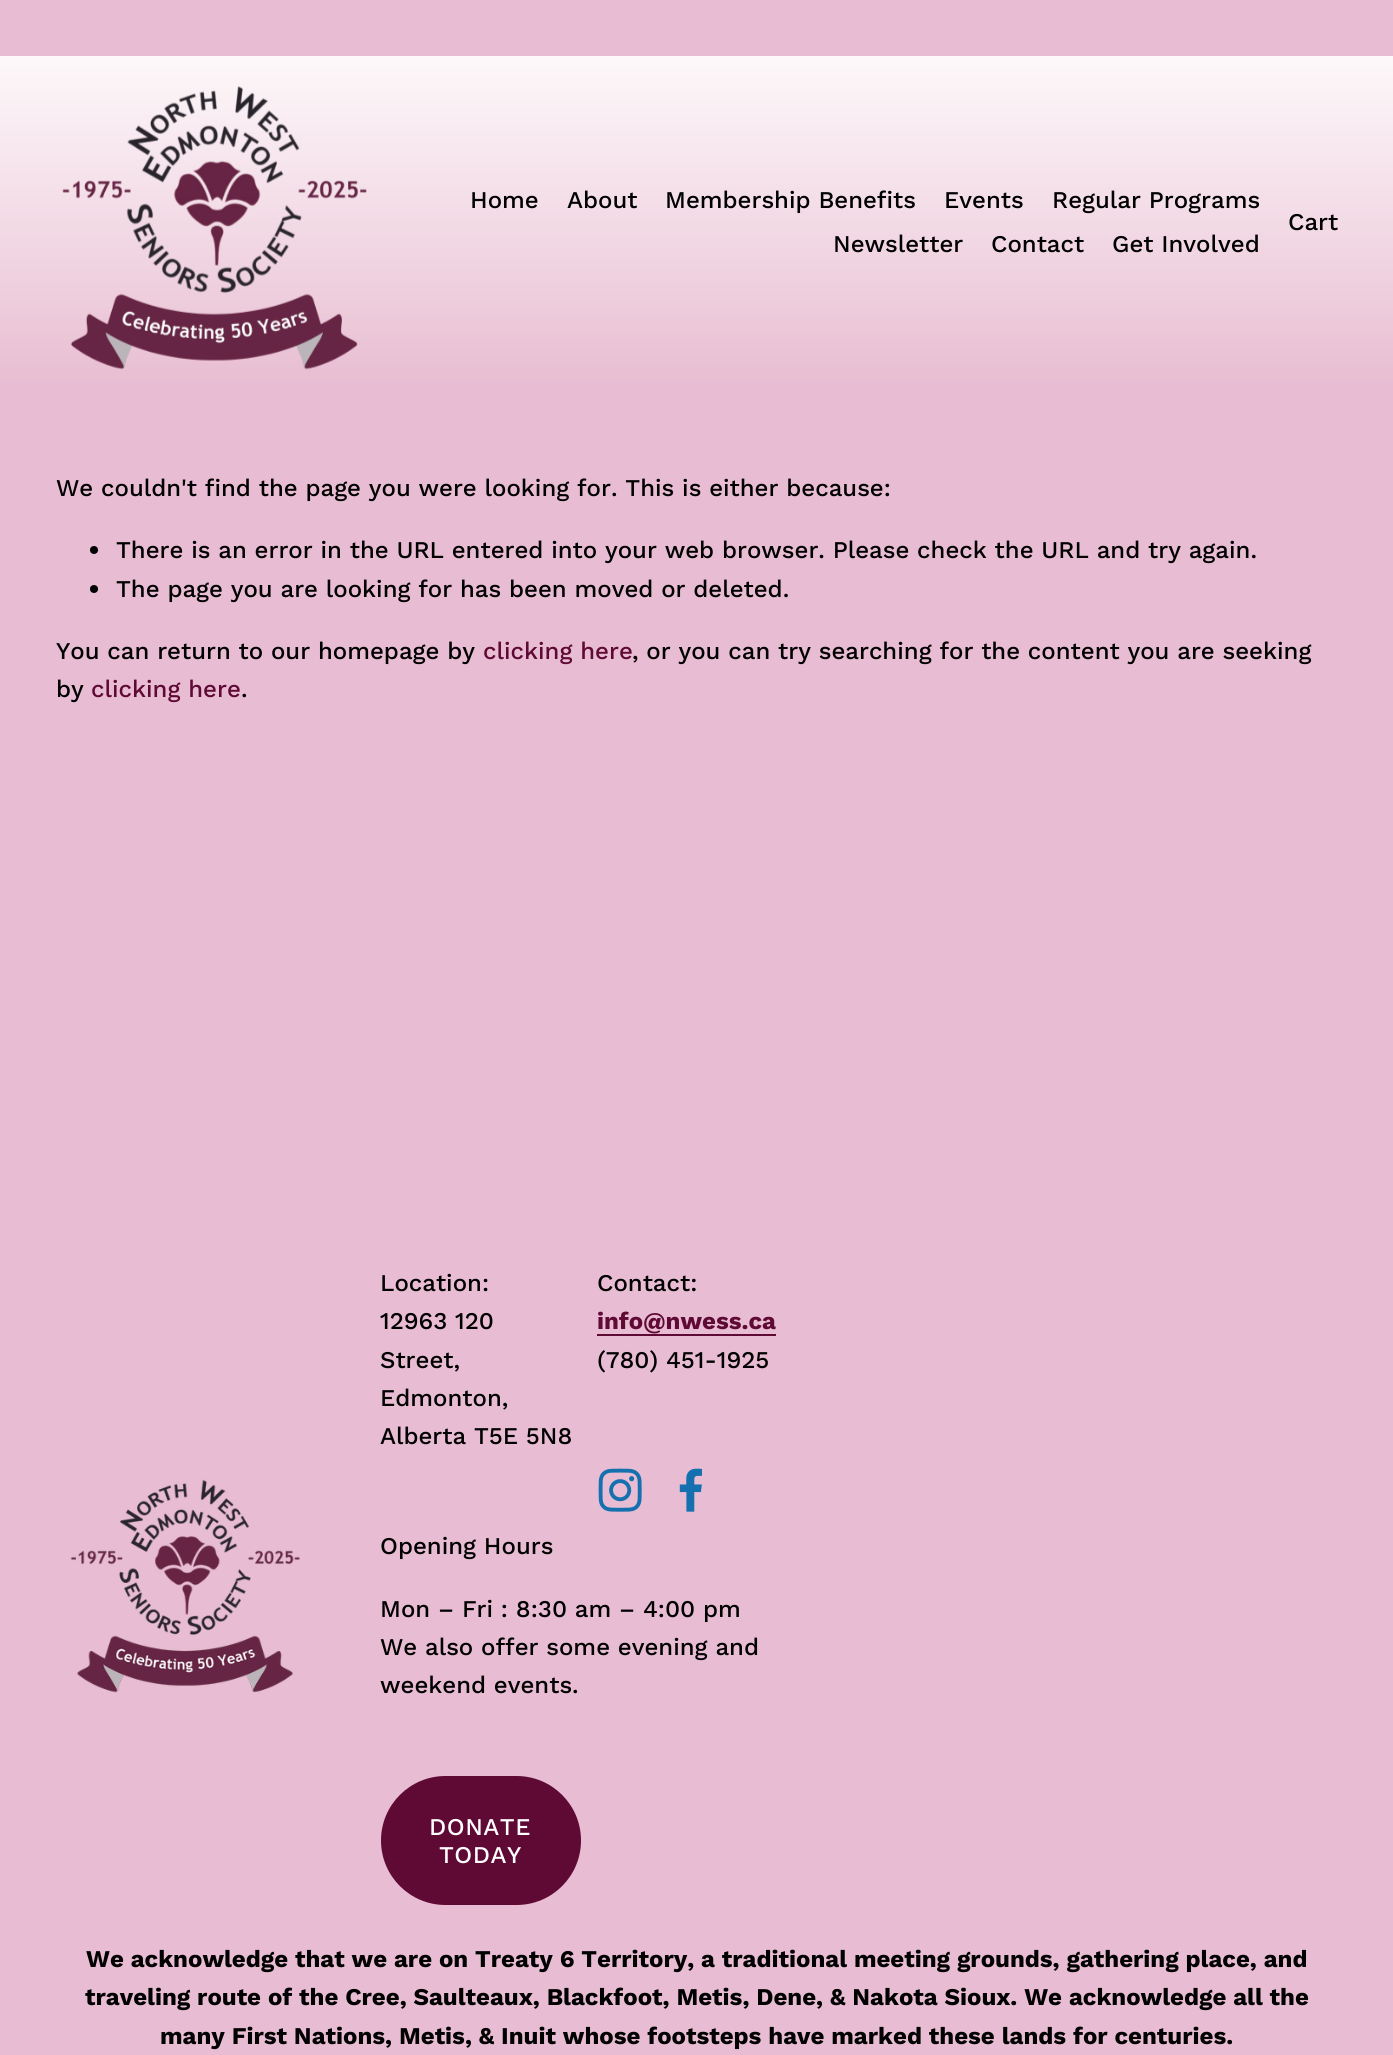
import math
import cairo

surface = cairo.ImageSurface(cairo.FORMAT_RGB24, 1393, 2055)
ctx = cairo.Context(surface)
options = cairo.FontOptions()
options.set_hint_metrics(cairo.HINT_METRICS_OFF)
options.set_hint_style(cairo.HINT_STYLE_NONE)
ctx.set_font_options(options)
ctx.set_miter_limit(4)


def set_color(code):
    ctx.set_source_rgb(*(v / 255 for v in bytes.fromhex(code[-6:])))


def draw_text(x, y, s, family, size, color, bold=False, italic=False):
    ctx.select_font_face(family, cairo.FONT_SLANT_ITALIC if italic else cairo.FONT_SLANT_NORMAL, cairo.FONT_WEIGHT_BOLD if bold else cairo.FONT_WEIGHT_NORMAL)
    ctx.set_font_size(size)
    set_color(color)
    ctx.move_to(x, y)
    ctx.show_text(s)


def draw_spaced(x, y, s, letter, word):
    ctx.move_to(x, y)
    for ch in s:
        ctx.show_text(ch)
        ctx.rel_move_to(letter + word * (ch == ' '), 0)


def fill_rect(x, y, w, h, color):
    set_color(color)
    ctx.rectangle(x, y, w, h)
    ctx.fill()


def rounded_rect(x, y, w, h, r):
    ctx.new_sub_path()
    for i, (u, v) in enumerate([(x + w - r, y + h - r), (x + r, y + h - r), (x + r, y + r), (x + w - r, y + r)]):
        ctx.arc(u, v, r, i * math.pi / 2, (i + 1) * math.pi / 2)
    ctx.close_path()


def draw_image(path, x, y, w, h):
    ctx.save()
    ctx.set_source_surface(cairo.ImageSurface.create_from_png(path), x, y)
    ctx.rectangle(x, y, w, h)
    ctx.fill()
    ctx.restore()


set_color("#e8bcd2")
ctx.paint()
gradient = cairo.LinearGradient(697, 55, 697, 389)
gradient.add_color_stop_rgba(0, 0.992, 0.973, 0.98, 1)
gradient.add_color_stop_rgba(1, 0.91, 0.741, 0.82, 1)
ctx.set_source(gradient)
ctx.rectangle(0, 56, 1393, 325)
ctx.fill()
draw_image("assets/img1.png", 62, 86, 305, 284)
draw_text(470, 208, "Home", "Work Sans Medium", 24, "#000000")
draw_text(567, 208, "About", "Work Sans Medium", 24, "#000000")
draw_text(665, 208, "Membership Benefits", "Work Sans Medium", 24, "#000000")
draw_text(944, 208, "Events", "Work Sans Medium", 24, "#000000")
draw_text(1052, 208, "Regular Programs", "Work Sans Medium", 24, "#000000")
draw_text(833, 252, "Newsletter", "Work Sans Medium", 24, "#000000")
draw_text(991, 252, "Contact", "Work Sans Medium", 24, "#000000")
draw_text(1112, 252, "Get Involved", "Work Sans Medium", 24, "#000000")
draw_text(1288, 230, "Cart", "Work Sans Medium", 24, "#000000")
draw_text(56, 496, "We couldn't find the page you were looking for. This is either because:", "Work Sans Medium", 24, "#000000")
ctx.new_path()
ctx.arc(94, 550, 4, 0, 2 * math.pi)
ctx.fill()
draw_text(116, 558, "There is an error in the URL entered into your web browser. Please check the URL and try again.", "Work Sans Medium", 24, "#000000")
ctx.new_path()
ctx.arc(94, 589, 4, 0, 2 * math.pi)
ctx.fill()
draw_text(116, 597, "The page you are looking for has been moved or deleted.", "Work Sans Medium", 24, "#000000")
draw_text(56, 659, "You can return to our homepage by", "Work Sans Medium", 24, "#000000")
draw_text(483, 659, "clicking here", "Work Sans Medium", 24, "#5f0935")
draw_text(632, 659, ", or you can try searching for the content you are seeking", "Work Sans Medium", 24, "#000000")
draw_text(56, 697, "by", "Work Sans Medium", 24, "#000000")
draw_text(91, 697, "clicking here", "Work Sans Medium", 24, "#5f0935")
draw_text(241, 697, ".", "Work Sans Medium", 24, "#000000")
draw_text(380, 1291, "Location:", "Work Sans Medium", 24, "#000000")
draw_text(380, 1329, "12963 120", "Work Sans Medium", 24, "#000000")
draw_text(380, 1368, "Street,", "Work Sans Medium", 24, "#000000")
draw_text(380, 1406, "Edmonton,", "Work Sans Medium", 24, "#000000")
draw_text(380, 1444, "Alberta T5E 5N8", "Work Sans Medium", 24, "#000000")
draw_text(597, 1291, "Contact:", "Work Sans Medium", 24, "#000000")
draw_text(597, 1329, "info@nwess.ca", "Work Sans", 24, "#5f0935", bold=True)
fill_rect(597, 1334, 179, 2, "#5f0935")
draw_text(597, 1368, "(780) 451-1925", "Work Sans Medium", 24, "#000000")
draw_image("assets/img2.png", 70, 1479, 230, 214)
draw_image("assets/img3.png", 598, 1468, 44, 44)
draw_image("assets/img4.png", 679, 1468, 23, 44)
draw_text(380, 1554, "Opening Hours", "Work Sans Medium", 24, "#000000")
draw_text(380, 1617, "Mon – Fri : 8:30 am – 4:00 pm", "Work Sans Medium", 24, "#000000")
draw_text(380, 1655, "We also offer some evening and", "Work Sans Medium", 24, "#000000")
draw_text(380, 1693, "weekend events.", "Work Sans Medium", 24, "#000000")
set_color("#5f0935")
rounded_rect(381, 1776, 200, 129, 64.5)
ctx.fill()
set_color("#ffffff")
draw_spaced(429, 1835, "DONATE", 0.5, 0)
draw_spaced(439, 1863, "TODAY", 0.5, 0)
draw_text(86, 1967, "We acknowledge that we are on Treaty 6 Territory, a traditional meeting grounds, gathering place, and", "Work Sans", 24, "#000000", bold=True)
draw_text(85, 2005, "traveling route of the Cree, Saulteaux, Blackfoot, Metis, Dene, & Nakota Sioux. We acknowledge all the", "Work Sans", 24, "#000000", bold=True)
draw_text(160, 2044, "many First Nations, Metis, & Inuit whose footsteps have marked these lands for centuries.", "Work Sans", 24, "#000000", bold=True)
surface.write_to_png("output.png")
